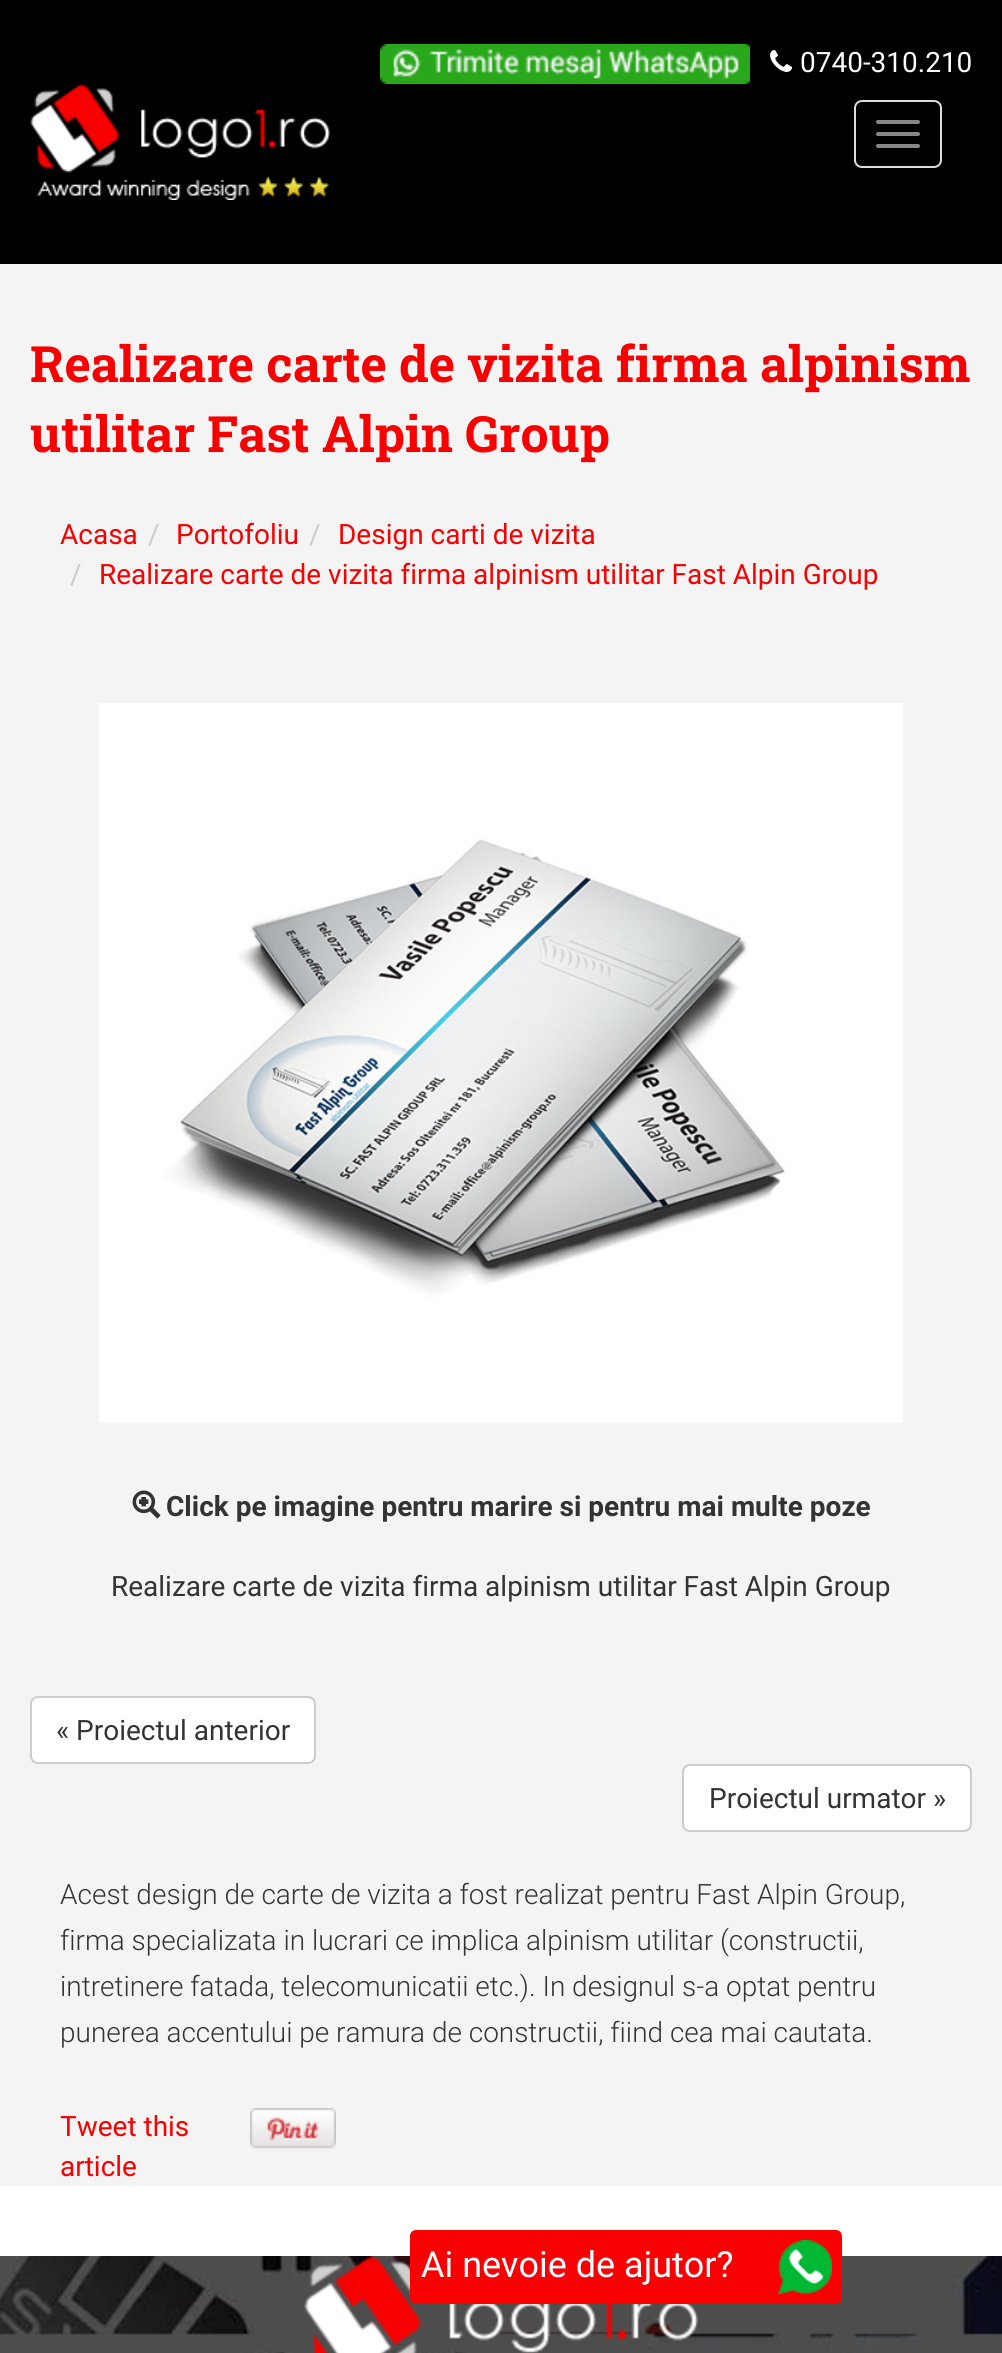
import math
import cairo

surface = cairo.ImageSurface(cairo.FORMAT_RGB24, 1002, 2353)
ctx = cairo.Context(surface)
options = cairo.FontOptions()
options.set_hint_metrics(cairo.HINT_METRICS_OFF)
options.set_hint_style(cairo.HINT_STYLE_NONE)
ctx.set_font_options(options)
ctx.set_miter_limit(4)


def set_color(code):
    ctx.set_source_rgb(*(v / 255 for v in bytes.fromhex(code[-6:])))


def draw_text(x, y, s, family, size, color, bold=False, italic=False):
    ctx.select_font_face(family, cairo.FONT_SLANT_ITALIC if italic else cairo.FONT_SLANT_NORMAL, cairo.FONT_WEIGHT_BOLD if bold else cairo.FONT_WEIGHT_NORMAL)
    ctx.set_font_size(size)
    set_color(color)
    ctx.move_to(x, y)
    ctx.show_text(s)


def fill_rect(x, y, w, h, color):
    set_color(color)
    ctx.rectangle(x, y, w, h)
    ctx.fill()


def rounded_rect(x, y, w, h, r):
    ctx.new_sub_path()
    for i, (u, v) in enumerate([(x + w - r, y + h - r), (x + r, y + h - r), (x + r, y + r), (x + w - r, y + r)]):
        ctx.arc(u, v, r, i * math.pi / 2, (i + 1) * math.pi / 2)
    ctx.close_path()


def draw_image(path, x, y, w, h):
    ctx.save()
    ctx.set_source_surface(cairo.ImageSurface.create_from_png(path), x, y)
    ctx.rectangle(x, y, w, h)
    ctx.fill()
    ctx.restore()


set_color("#ffffff")
ctx.paint()
fill_rect(0, 0, 1002, 264, "#000000")
draw_image("assets/img1.png", 380, 44, 370, 40)
draw_image("assets/img2.png", 770, 50, 22, 22)
draw_text(800, 72, "0740-310.210", "Roboto", 28, "#ffffff")
draw_image("assets/img3.png", 30, 84, 300, 116)
rounded_rect(855, 101, 86, 66, 7)
set_color("#dddddd")
ctx.stroke()
set_color("#888888")
rounded_rect(876, 120, 44, 4, 2)
ctx.fill()
rounded_rect(876, 132, 44, 4, 2)
ctx.fill()
rounded_rect(876, 144, 44, 4, 2)
ctx.fill()
fill_rect(0, 264, 1002, 1922, "#f5f4f5")
draw_text(30, 382, "Realizare carte de vizita firma alpinism", "Roboto Slab", 50, "#f70000", bold=True)
draw_text(30, 452, "utilitar Fast Alpin Group", "Roboto Slab", 50, "#f70000", bold=True)
draw_text(60, 544, "Acasa", "Roboto", 28, "#f70000")
draw_text(148, 544, "/", "Roboto", 28, "#cccccc")
draw_text(176, 544, "Portofoliu", "Roboto", 28, "#f70000")
draw_text(309, 544, "/", "Roboto", 28, "#cccccc")
draw_text(338, 544, "Design carti de vizita", "Roboto", 28, "#f70000")
draw_text(70, 584, "/", "Roboto", 28, "#cccccc")
draw_text(99, 584, "Realizare carte de vizita firma alpinism utilitar Fast Alpin Group", "Roboto", 28, "#f70000")
draw_image("assets/img4.png", 99, 703, 804, 720)
draw_image("assets/img5.png", 132, 1490, 29, 29)
draw_text(166, 1516, "Click pe imagine pentru marire si pentru mai multe poze", "Roboto", 28, "#333333", bold=True)
draw_text(111, 1596, "Realizare carte de vizita firma alpinism utilitar Fast Alpin Group", "Roboto", 28, "#333333")
set_color("#ffffff")
rounded_rect(31, 1697, 284, 66, 7)
ctx.fill_preserve()
set_color("#cccccc")
ctx.stroke()
draw_text(56, 1740, "« Proiectul anterior", "Roboto", 28, "#333333")
set_color("#ffffff")
rounded_rect(683, 1765, 288, 66, 7)
ctx.fill_preserve()
set_color("#cccccc")
ctx.stroke()
draw_text(709, 1808, "Proiectul urmator »", "Roboto", 28, "#333333")
draw_text(60, 1904, "Acest design de carte de vizita a fost realizat pentru Fast Alpin Group,", "Roboto Light", 28, "#333333")
draw_text(60, 1950, "firma specializata in lucrari ce implica alpinism utilitar (constructii,", "Roboto Light", 28, "#333333")
draw_text(60, 1996, "intretinere fatada, telecomunicatii etc.). In designul s-a optat pentru", "Roboto Light", 28, "#333333")
draw_text(60, 2042, "punerea accentului pe ramura de constructii, fiind cea mai cautata.", "Roboto Light", 28, "#333333")
draw_text(60, 2136, "Tweet this", "Roboto", 28, "#f70000")
draw_text(60, 2176, "article", "Roboto", 28, "#f70000")
draw_image("assets/img6.png", 250, 2108, 86, 41)
draw_image("assets/img7.png", 0, 2256, 1002, 97)
draw_image("assets/img9.png", 304, 2256, 394, 97)
set_color("#f70102")
rounded_rect(410, 2230, 432, 74, 6)
ctx.fill()
draw_text(421, 2277, "Ai nevoie de ajutor?", "Roboto", 36, "#ffffff")
draw_image("assets/img8.png", 778, 2240, 54, 54)
surface.write_to_png("output.png")
